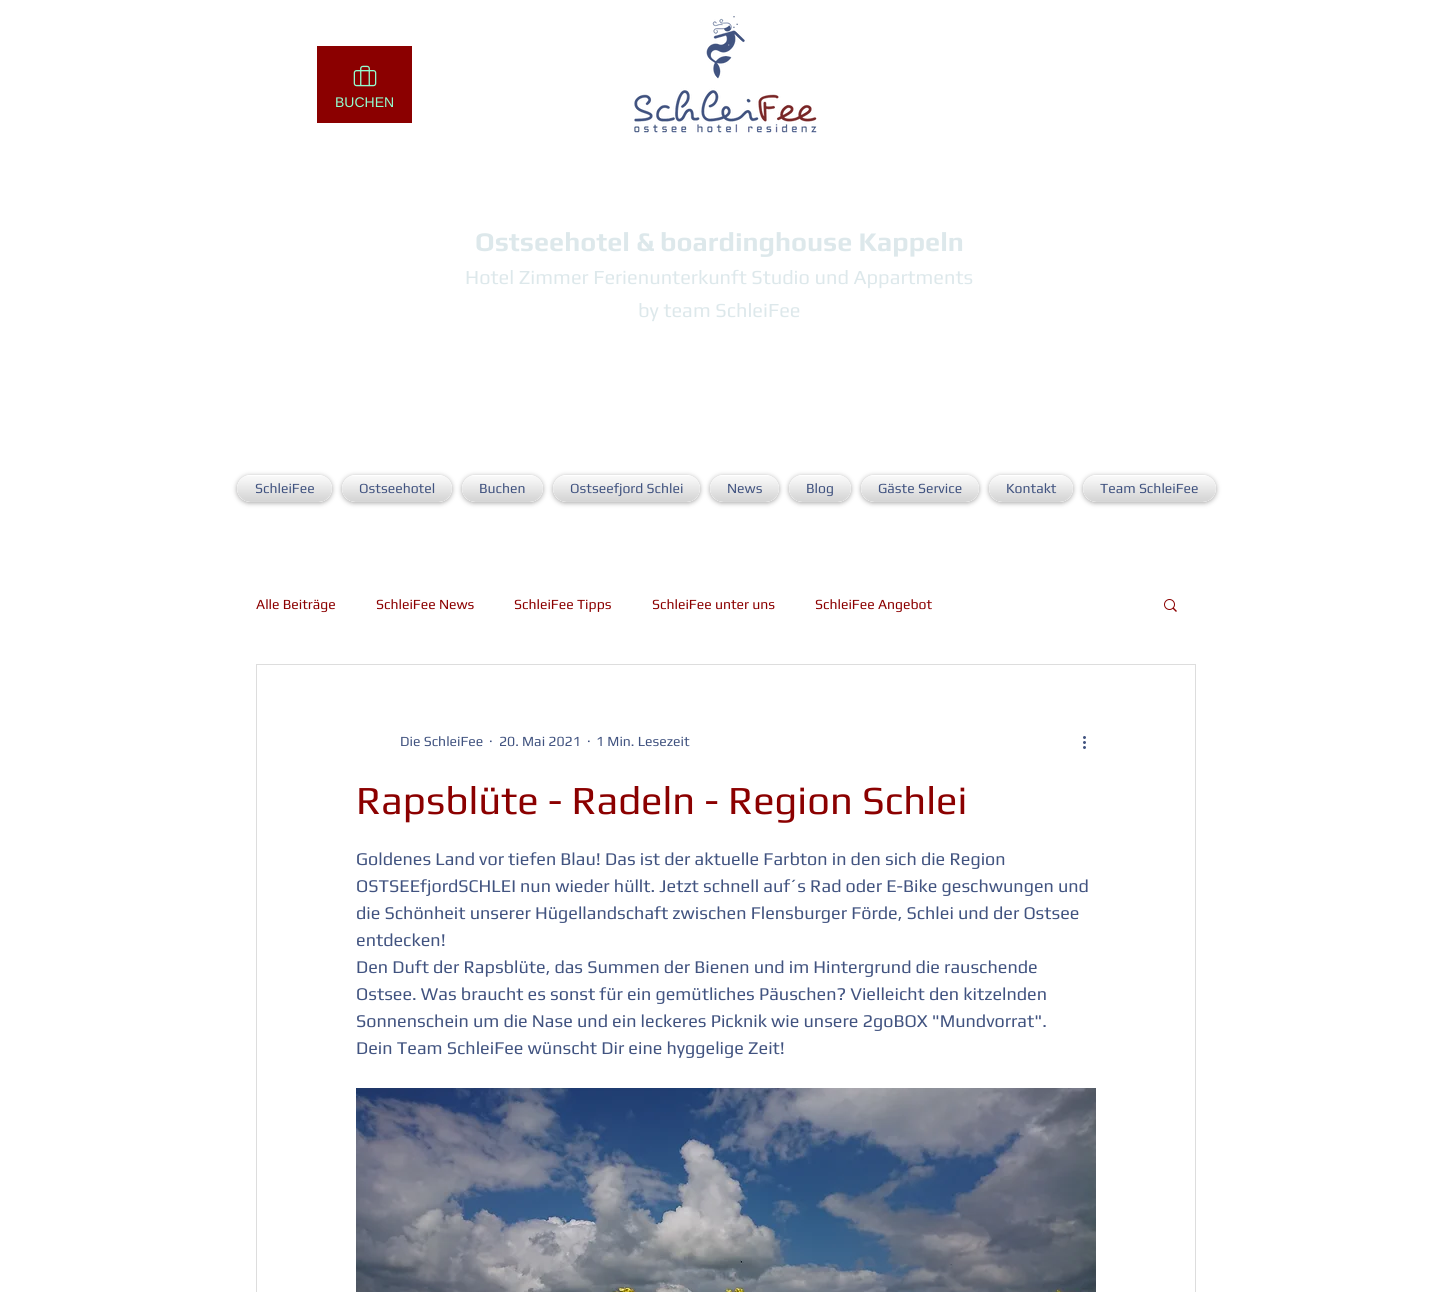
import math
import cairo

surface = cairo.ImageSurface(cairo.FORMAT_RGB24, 1452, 1292)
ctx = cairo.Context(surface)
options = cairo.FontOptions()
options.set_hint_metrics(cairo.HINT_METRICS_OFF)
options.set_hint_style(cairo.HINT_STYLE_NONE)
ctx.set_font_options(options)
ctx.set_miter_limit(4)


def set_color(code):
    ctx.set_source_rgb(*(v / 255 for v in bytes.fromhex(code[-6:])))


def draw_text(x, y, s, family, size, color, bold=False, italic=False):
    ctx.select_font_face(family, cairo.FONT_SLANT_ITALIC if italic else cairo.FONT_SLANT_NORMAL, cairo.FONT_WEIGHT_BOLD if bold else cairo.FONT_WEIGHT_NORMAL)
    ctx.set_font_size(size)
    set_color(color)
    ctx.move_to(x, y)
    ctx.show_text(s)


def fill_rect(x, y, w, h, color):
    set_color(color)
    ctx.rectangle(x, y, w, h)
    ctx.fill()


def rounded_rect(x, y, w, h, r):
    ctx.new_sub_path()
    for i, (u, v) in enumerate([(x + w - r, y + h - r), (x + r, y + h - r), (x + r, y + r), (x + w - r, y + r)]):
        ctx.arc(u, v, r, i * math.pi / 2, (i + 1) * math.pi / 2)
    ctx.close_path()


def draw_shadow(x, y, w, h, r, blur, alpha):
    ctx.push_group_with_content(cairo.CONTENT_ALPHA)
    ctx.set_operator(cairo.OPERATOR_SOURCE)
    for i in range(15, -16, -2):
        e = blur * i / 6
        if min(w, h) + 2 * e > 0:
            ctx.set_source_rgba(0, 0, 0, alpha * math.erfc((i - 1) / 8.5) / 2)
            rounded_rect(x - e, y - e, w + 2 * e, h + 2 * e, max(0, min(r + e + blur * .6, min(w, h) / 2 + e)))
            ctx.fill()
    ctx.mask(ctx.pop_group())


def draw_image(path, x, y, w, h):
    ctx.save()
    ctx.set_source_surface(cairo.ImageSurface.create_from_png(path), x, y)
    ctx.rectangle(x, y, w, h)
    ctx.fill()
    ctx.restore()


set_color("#ffffff")
ctx.paint()
fill_rect(317, 46, 95, 77, "#8b0000")
draw_image("assets/img1.png", 353, 65, 24, 22)
draw_text(335, 107, "BUCHEN", "Liberation Sans", 14, "#92ffd1")
draw_image("assets/img2.png", 634, 16, 183, 117)
draw_text(475, 251, "Ostseehotel & boardinghouse Kappeln", "Play", 27, "#dde8eb", bold=True)
draw_text(465, 284, "Hotel Zimmer Ferienunterkunft Studio und Appartments", "Play", 20, "#dde8eb")
draw_text(638, 317, "by team SchleiFee", "Play", 20, "#dde8eb")
ctx.save()
ctx.set_fill_rule(cairo.FILL_RULE_EVEN_ODD)
ctx.new_path()
ctx.move_to(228, 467)
ctx.line_to(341, 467)
ctx.line_to(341, 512)
ctx.line_to(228, 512)
ctx.close_path()
ctx.move_to(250.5, 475)
ctx.line_to(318.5, 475)
ctx.curve_to(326, 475, 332, 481, 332, 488.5)
ctx.curve_to(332, 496, 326, 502, 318.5, 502)
ctx.line_to(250.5, 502)
ctx.curve_to(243, 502, 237, 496, 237, 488.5)
ctx.curve_to(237, 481, 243, 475, 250.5, 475)
ctx.close_path()
ctx.clip()
set_color("#6b6a6a")
draw_shadow(237, 476, 95, 27, 13.5, 2.5, 0.6)
ctx.restore()
ctx.set_source_rgba(1, 1, 1, 0.5)
rounded_rect(237, 475, 95, 27, 13.5)
ctx.fill()
draw_image("assets/img3.png", 237, 476, 95, 26)
draw_text(255, 493, "SchleiFee", "Play", 14, "#415380")
ctx.save()
ctx.set_fill_rule(cairo.FILL_RULE_EVEN_ODD)
ctx.new_path()
ctx.move_to(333, 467)
ctx.line_to(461, 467)
ctx.line_to(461, 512)
ctx.line_to(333, 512)
ctx.close_path()
ctx.move_to(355.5, 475)
ctx.line_to(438.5, 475)
ctx.curve_to(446, 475, 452, 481, 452, 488.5)
ctx.curve_to(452, 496, 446, 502, 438.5, 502)
ctx.line_to(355.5, 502)
ctx.curve_to(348, 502, 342, 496, 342, 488.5)
ctx.curve_to(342, 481, 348, 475, 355.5, 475)
ctx.close_path()
ctx.clip()
set_color("#6b6a6a")
draw_shadow(342, 476, 110, 27, 13.5, 2.5, 0.6)
ctx.restore()
ctx.set_source_rgba(1, 1, 1, 0.5)
rounded_rect(342, 475, 110, 27, 13.5)
ctx.fill()
draw_image("assets/img4.png", 342, 476, 110, 26)
draw_text(359, 493, "Ostseehotel", "Play", 14, "#415380")
ctx.save()
ctx.set_fill_rule(cairo.FILL_RULE_EVEN_ODD)
ctx.new_path()
ctx.move_to(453, 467)
ctx.line_to(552, 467)
ctx.line_to(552, 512)
ctx.line_to(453, 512)
ctx.close_path()
ctx.move_to(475.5, 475)
ctx.line_to(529.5, 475)
ctx.curve_to(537, 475, 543, 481, 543, 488.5)
ctx.curve_to(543, 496, 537, 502, 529.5, 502)
ctx.line_to(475.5, 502)
ctx.curve_to(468, 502, 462, 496, 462, 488.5)
ctx.curve_to(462, 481, 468, 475, 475.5, 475)
ctx.close_path()
ctx.clip()
set_color("#6b6a6a")
draw_shadow(462, 476, 81, 27, 13.5, 2.5, 0.6)
ctx.restore()
ctx.set_source_rgba(1, 1, 1, 0.5)
rounded_rect(462, 475, 81, 27, 13.5)
ctx.fill()
draw_image("assets/img5.png", 462, 476, 81, 26)
draw_text(479, 493, "Buchen", "Play", 14, "#415380")
ctx.save()
ctx.set_fill_rule(cairo.FILL_RULE_EVEN_ODD)
ctx.new_path()
ctx.move_to(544, 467)
ctx.line_to(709, 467)
ctx.line_to(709, 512)
ctx.line_to(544, 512)
ctx.close_path()
ctx.move_to(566.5, 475)
ctx.line_to(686.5, 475)
ctx.curve_to(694, 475, 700, 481, 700, 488.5)
ctx.curve_to(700, 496, 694, 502, 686.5, 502)
ctx.line_to(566.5, 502)
ctx.curve_to(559, 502, 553, 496, 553, 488.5)
ctx.curve_to(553, 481, 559, 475, 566.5, 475)
ctx.close_path()
ctx.clip()
set_color("#6b6a6a")
draw_shadow(553, 476, 147, 27, 13.5, 2.5, 0.6)
ctx.restore()
ctx.set_source_rgba(1, 1, 1, 0.5)
rounded_rect(553, 475, 147, 27, 13.5)
ctx.fill()
draw_image("assets/img6.png", 553, 476, 147, 26)
draw_text(570, 493, "Ostseefjord Schlei", "Play", 14, "#415380")
ctx.save()
ctx.set_fill_rule(cairo.FILL_RULE_EVEN_ODD)
ctx.new_path()
ctx.move_to(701, 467)
ctx.line_to(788, 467)
ctx.line_to(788, 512)
ctx.line_to(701, 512)
ctx.close_path()
ctx.move_to(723.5, 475)
ctx.line_to(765.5, 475)
ctx.curve_to(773, 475, 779, 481, 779, 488.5)
ctx.curve_to(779, 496, 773, 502, 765.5, 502)
ctx.line_to(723.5, 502)
ctx.curve_to(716, 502, 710, 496, 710, 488.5)
ctx.curve_to(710, 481, 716, 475, 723.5, 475)
ctx.close_path()
ctx.clip()
set_color("#6b6a6a")
draw_shadow(710, 476, 69, 27, 13.5, 2.5, 0.6)
ctx.restore()
ctx.set_source_rgba(1, 1, 1, 0.5)
rounded_rect(710, 475, 69, 27, 13.5)
ctx.fill()
draw_image("assets/img7.png", 710, 476, 69, 26)
draw_text(727, 493, "News", "Play", 14, "#415380")
ctx.save()
ctx.set_fill_rule(cairo.FILL_RULE_EVEN_ODD)
ctx.new_path()
ctx.move_to(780, 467)
ctx.line_to(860, 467)
ctx.line_to(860, 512)
ctx.line_to(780, 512)
ctx.close_path()
ctx.move_to(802.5, 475)
ctx.line_to(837.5, 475)
ctx.curve_to(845, 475, 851, 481, 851, 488.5)
ctx.curve_to(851, 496, 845, 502, 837.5, 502)
ctx.line_to(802.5, 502)
ctx.curve_to(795, 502, 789, 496, 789, 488.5)
ctx.curve_to(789, 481, 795, 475, 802.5, 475)
ctx.close_path()
ctx.clip()
set_color("#6b6a6a")
draw_shadow(789, 476, 62, 27, 13.5, 2.5, 0.6)
ctx.restore()
ctx.set_source_rgba(1, 1, 1, 0.5)
rounded_rect(789, 475, 62, 27, 13.5)
ctx.fill()
draw_image("assets/img8.png", 789, 476, 62, 26)
draw_text(806, 493, "Blog", "Play", 14, "#415380")
ctx.save()
ctx.set_fill_rule(cairo.FILL_RULE_EVEN_ODD)
ctx.new_path()
ctx.move_to(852, 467)
ctx.line_to(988, 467)
ctx.line_to(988, 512)
ctx.line_to(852, 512)
ctx.close_path()
ctx.move_to(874.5, 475)
ctx.line_to(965.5, 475)
ctx.curve_to(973, 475, 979, 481, 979, 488.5)
ctx.curve_to(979, 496, 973, 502, 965.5, 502)
ctx.line_to(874.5, 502)
ctx.curve_to(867, 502, 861, 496, 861, 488.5)
ctx.curve_to(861, 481, 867, 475, 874.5, 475)
ctx.close_path()
ctx.clip()
set_color("#6b6a6a")
draw_shadow(861, 476, 118, 27, 13.5, 2.5, 0.6)
ctx.restore()
ctx.set_source_rgba(1, 1, 1, 0.5)
rounded_rect(861, 475, 118, 27, 13.5)
ctx.fill()
draw_image("assets/img9.png", 861, 476, 118, 26)
draw_text(878, 493, "Gäste Service", "Play", 14, "#415380")
ctx.save()
ctx.set_fill_rule(cairo.FILL_RULE_EVEN_ODD)
ctx.new_path()
ctx.move_to(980, 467)
ctx.line_to(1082, 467)
ctx.line_to(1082, 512)
ctx.line_to(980, 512)
ctx.close_path()
ctx.move_to(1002.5, 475)
ctx.line_to(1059.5, 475)
ctx.curve_to(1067, 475, 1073, 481, 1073, 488.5)
ctx.curve_to(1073, 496, 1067, 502, 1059.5, 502)
ctx.line_to(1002.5, 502)
ctx.curve_to(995, 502, 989, 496, 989, 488.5)
ctx.curve_to(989, 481, 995, 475, 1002.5, 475)
ctx.close_path()
ctx.clip()
set_color("#6b6a6a")
draw_shadow(989, 476, 84, 27, 13.5, 2.5, 0.6)
ctx.restore()
ctx.set_source_rgba(1, 1, 1, 0.5)
rounded_rect(989, 475, 84, 27, 13.5)
ctx.fill()
draw_image("assets/img10.png", 989, 476, 84, 26)
draw_text(1006, 493, "Kontakt", "Play", 14, "#415380")
ctx.save()
ctx.set_fill_rule(cairo.FILL_RULE_EVEN_ODD)
ctx.new_path()
ctx.move_to(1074, 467)
ctx.line_to(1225, 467)
ctx.line_to(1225, 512)
ctx.line_to(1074, 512)
ctx.close_path()
ctx.move_to(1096.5, 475)
ctx.line_to(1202.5, 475)
ctx.curve_to(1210, 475, 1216, 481, 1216, 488.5)
ctx.curve_to(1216, 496, 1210, 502, 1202.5, 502)
ctx.line_to(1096.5, 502)
ctx.curve_to(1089, 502, 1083, 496, 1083, 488.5)
ctx.curve_to(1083, 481, 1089, 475, 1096.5, 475)
ctx.close_path()
ctx.clip()
set_color("#6b6a6a")
draw_shadow(1083, 476, 133, 27, 13.5, 2.5, 0.6)
ctx.restore()
ctx.set_source_rgba(1, 1, 1, 0.5)
rounded_rect(1083, 475, 133, 27, 13.5)
ctx.fill()
draw_image("assets/img11.png", 1083, 476, 133, 26)
draw_text(1100, 493, "Team SchleiFee", "Play", 14, "#415380")
draw_text(256, 609, "Alle Beiträge", "Play", 14, "#8b0000")
draw_text(376, 609, "SchleiFee News", "Play", 14, "#8b0000")
draw_text(514, 609, "SchleiFee Tipps", "Play", 14, "#8b0000")
draw_text(652, 609, "SchleiFee unter uns", "Play", 14, "#8b0000")
draw_text(815, 609, "SchleiFee Angebot", "Play", 14, "#8b0000")
draw_image("assets/img12.png", 1164, 599, 13, 13)
ctx.rectangle(256.5, 664.5, 939, 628)
set_color("#dddddd")
ctx.set_line_width(1)
ctx.stroke()
draw_text(400, 746, "Die SchleiFee", "Play", 14, "#415380")
draw_text(489, 746, "·", "Play", 14, "#415380")
draw_text(499, 746, "20. Mai 2021", "Play", 14, "#415380")
draw_text(587, 746, "·", "Play", 14, "#415380")
draw_text(596, 746, "1 Min. Lesezeit", "Play", 14, "#415380")
draw_image("assets/img13.png", 1083, 736, 3, 13)
draw_text(356, 814, "Rapsblüte - Radeln - Region Schlei", "Play", 40, "#8b0000")
draw_text(356, 865, "Goldenes Land vor tiefen Blau! Das ist der aktuelle Farbton in den sich die Region", "Play", 18, "#415380")
draw_text(356, 892, "OSTSEEfjordSCHLEI nun wieder hüllt. Jetzt schnell auf´s Rad oder E-Bike geschwungen und", "Play", 18, "#415380")
draw_text(356, 919, "die Schönheit unserer Hügellandschaft zwischen Flensburger Förde, Schlei und der Ostsee", "Play", 18, "#415380")
draw_text(356, 946, "entdecken!", "Play", 18, "#415380")
draw_text(356, 973, "Den Duft der Rapsblüte, das Summen der Bienen und im Hintergrund die rauschende", "Play", 18, "#415380")
draw_text(356, 1000, "Ostsee. Was braucht es sonst für ein gemütliches Päuschen? Vielleicht den kitzelnden", "Play", 18, "#415380")
draw_text(356, 1027, "Sonnenschein um die Nase und ein leckeres Picknik wie unsere 2goBOX \"Mundvorrat\".", "Play", 18, "#415380")
draw_text(356, 1054, "Dein Team SchleiFee wünscht Dir eine hyggelige Zeit!", "Play", 18, "#415380")
draw_image("assets/img14.png", 356, 1088, 740, 204)
surface.write_to_png("output.png")
